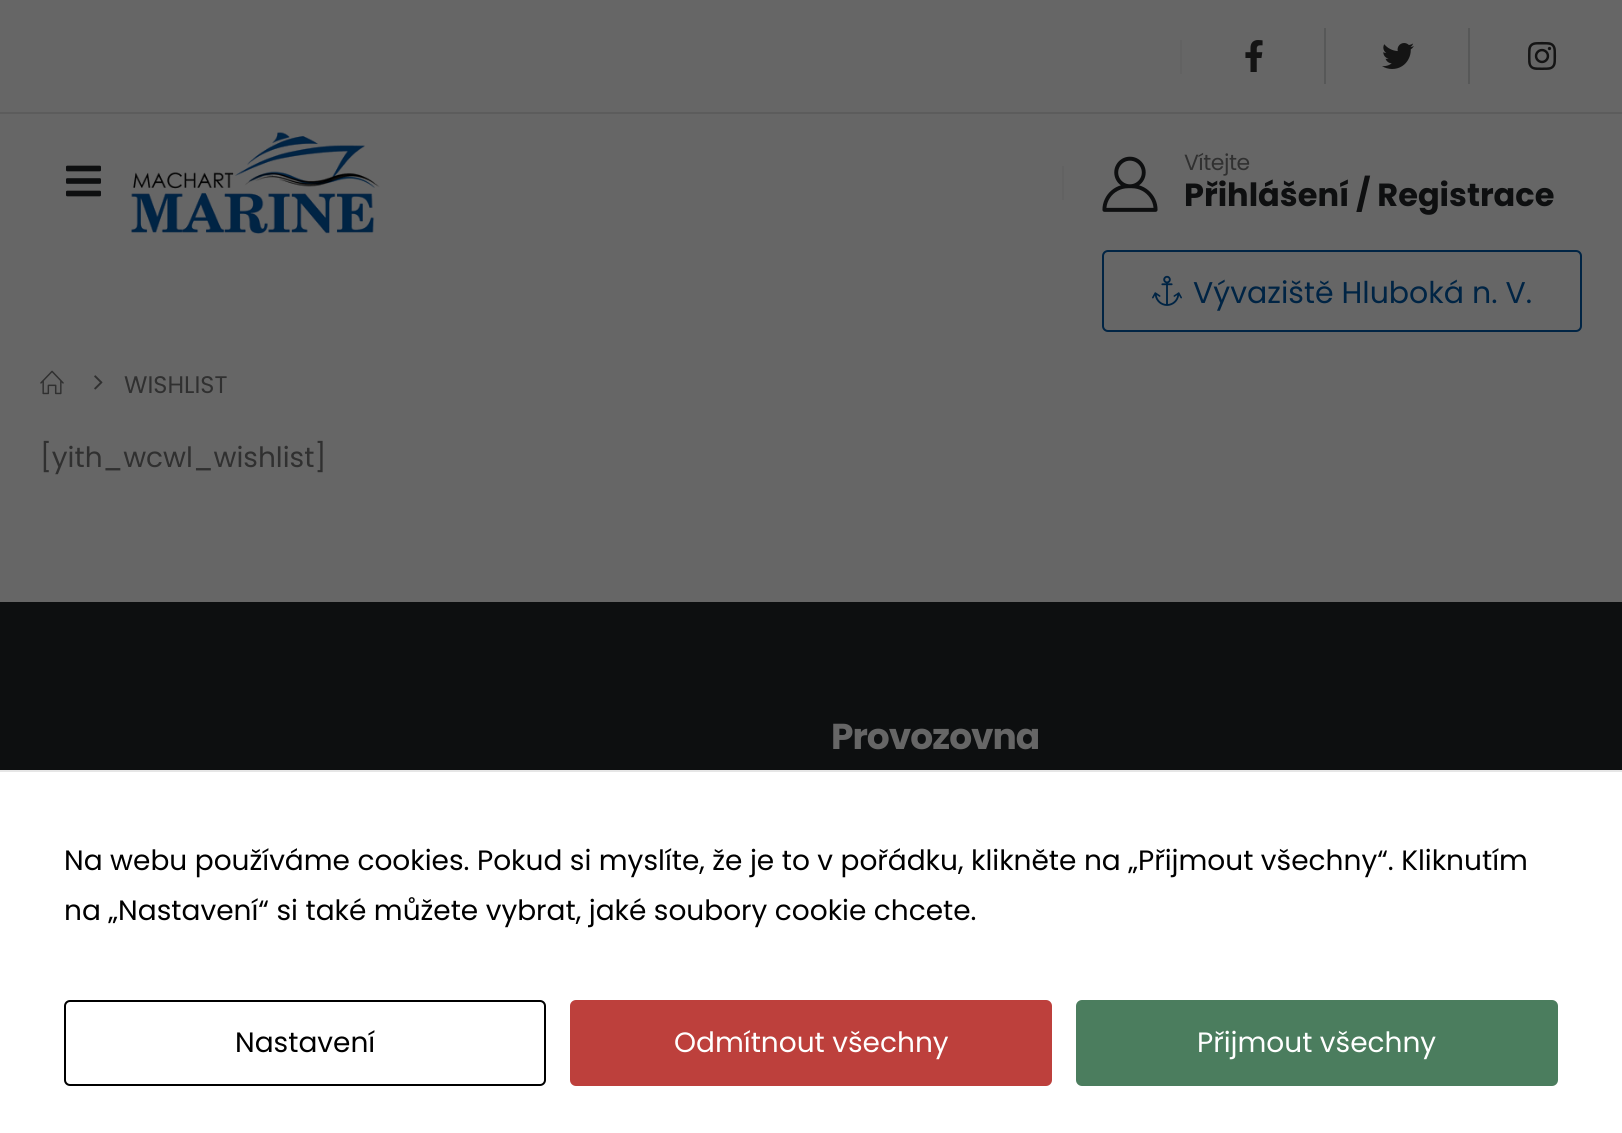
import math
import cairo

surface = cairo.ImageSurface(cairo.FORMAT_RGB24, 1622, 1133)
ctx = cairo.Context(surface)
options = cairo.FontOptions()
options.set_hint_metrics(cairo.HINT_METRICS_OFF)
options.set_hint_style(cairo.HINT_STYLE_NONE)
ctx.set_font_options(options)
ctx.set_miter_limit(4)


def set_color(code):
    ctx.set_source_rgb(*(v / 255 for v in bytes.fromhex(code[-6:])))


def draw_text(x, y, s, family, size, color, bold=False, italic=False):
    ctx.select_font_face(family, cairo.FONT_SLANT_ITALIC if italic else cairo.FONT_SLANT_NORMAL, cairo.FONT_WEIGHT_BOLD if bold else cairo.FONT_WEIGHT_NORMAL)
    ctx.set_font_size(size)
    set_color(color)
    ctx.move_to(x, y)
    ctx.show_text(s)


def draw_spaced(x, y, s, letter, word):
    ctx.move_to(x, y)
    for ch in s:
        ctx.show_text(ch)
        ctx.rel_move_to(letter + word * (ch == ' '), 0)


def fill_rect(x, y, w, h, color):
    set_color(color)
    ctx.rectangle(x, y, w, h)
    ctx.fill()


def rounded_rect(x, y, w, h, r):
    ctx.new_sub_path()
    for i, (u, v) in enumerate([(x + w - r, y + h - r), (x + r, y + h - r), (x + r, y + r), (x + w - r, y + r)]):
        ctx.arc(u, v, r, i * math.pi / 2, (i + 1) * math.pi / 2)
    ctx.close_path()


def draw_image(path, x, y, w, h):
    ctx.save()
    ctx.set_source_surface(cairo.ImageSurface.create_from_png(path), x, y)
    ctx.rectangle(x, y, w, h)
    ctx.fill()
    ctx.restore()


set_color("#666666")
ctx.paint()
fill_rect(0, 112, 1622, 2, "#5c5c5c")
fill_rect(1180, 40, 2, 34, "#626262")
draw_image("assets/img1.png", 1245, 40, 18, 32)
fill_rect(1324, 28, 2, 56, "#575858")
draw_image("assets/img2.png", 1382, 43, 32, 26)
fill_rect(1468, 28, 2, 56, "#575858")
draw_image("assets/img3.png", 1528, 41, 29, 29)
draw_image("assets/img4.png", 66, 165, 35, 32)
draw_image("assets/img5.png", 131, 132, 249, 102)
fill_rect(1062, 166, 2, 34, "#626262")
draw_image("assets/img6.png", 1102, 156, 56, 56)
ctx.select_font_face("Poppins")
ctx.set_font_size(22)
set_color("#303030")
draw_spaced(1184, 170, "Vítejte", -0.5, 0)
draw_text(1184, 206, "Přihlášení / Registrace", "Poppins", 32, "#0e0f10", bold=True)
rounded_rect(1103, 251, 478, 80, 5)
set_color("#002444")
ctx.stroke()
draw_image("assets/img7.png", 1152, 275, 30, 31)
draw_text(1193, 303, "Vývaziště Hluboká n. V.", "Poppins", 30, "#002444")
draw_image("assets/img8.png", 40, 370, 24, 25)
draw_image("assets/img9.png", 94, 375, 9, 15)
draw_text(124, 393, "WISHLIST", "Poppins", 24, "#303030")
draw_text(40, 467, "[yith_wcwl_wishlist]", "Poppins", 28, "#303030")
fill_rect(0, 602, 1622, 168, "#0d0f10")
ctx.select_font_face("Poppins", cairo.FONT_SLANT_NORMAL, cairo.FONT_WEIGHT_BOLD)
ctx.set_font_size(36)
set_color("#666666")
draw_spaced(831, 749, "Provozovna", -1, 0)
fill_rect(0, 772, 1622, 361, "#ffffff")
fill_rect(0, 770, 1622, 2, "#e6e6e6")
draw_text(64, 870, "Na webu používáme cookies. Pokud si myslíte, že je to v pořádku, klikněte na „Přijmout všechny“. Kliknutím", "Poppins", 28, "#000000")
draw_text(64, 920, "na „Nastavení“ si také můžete vybrat, jaké soubory cookie chcete.", "Poppins", 28, "#000000")
rounded_rect(65, 1001, 480, 84, 5)
ctx.stroke()
draw_text(235, 1052, "Nastavení", "Poppins", 28, "#000000")
set_color("#bd403c")
rounded_rect(571, 1001, 480, 84, 5)
ctx.fill_preserve()
ctx.stroke()
draw_text(674, 1052, "Odmítnout všechny", "Poppins", 28, "#ffffff")
set_color("#4b7d5e")
rounded_rect(1077, 1001, 480, 84, 5)
ctx.fill_preserve()
ctx.stroke()
draw_text(1197, 1052, "Přijmout všechny", "Poppins", 28, "#ffffff")
surface.write_to_png("output.png")
